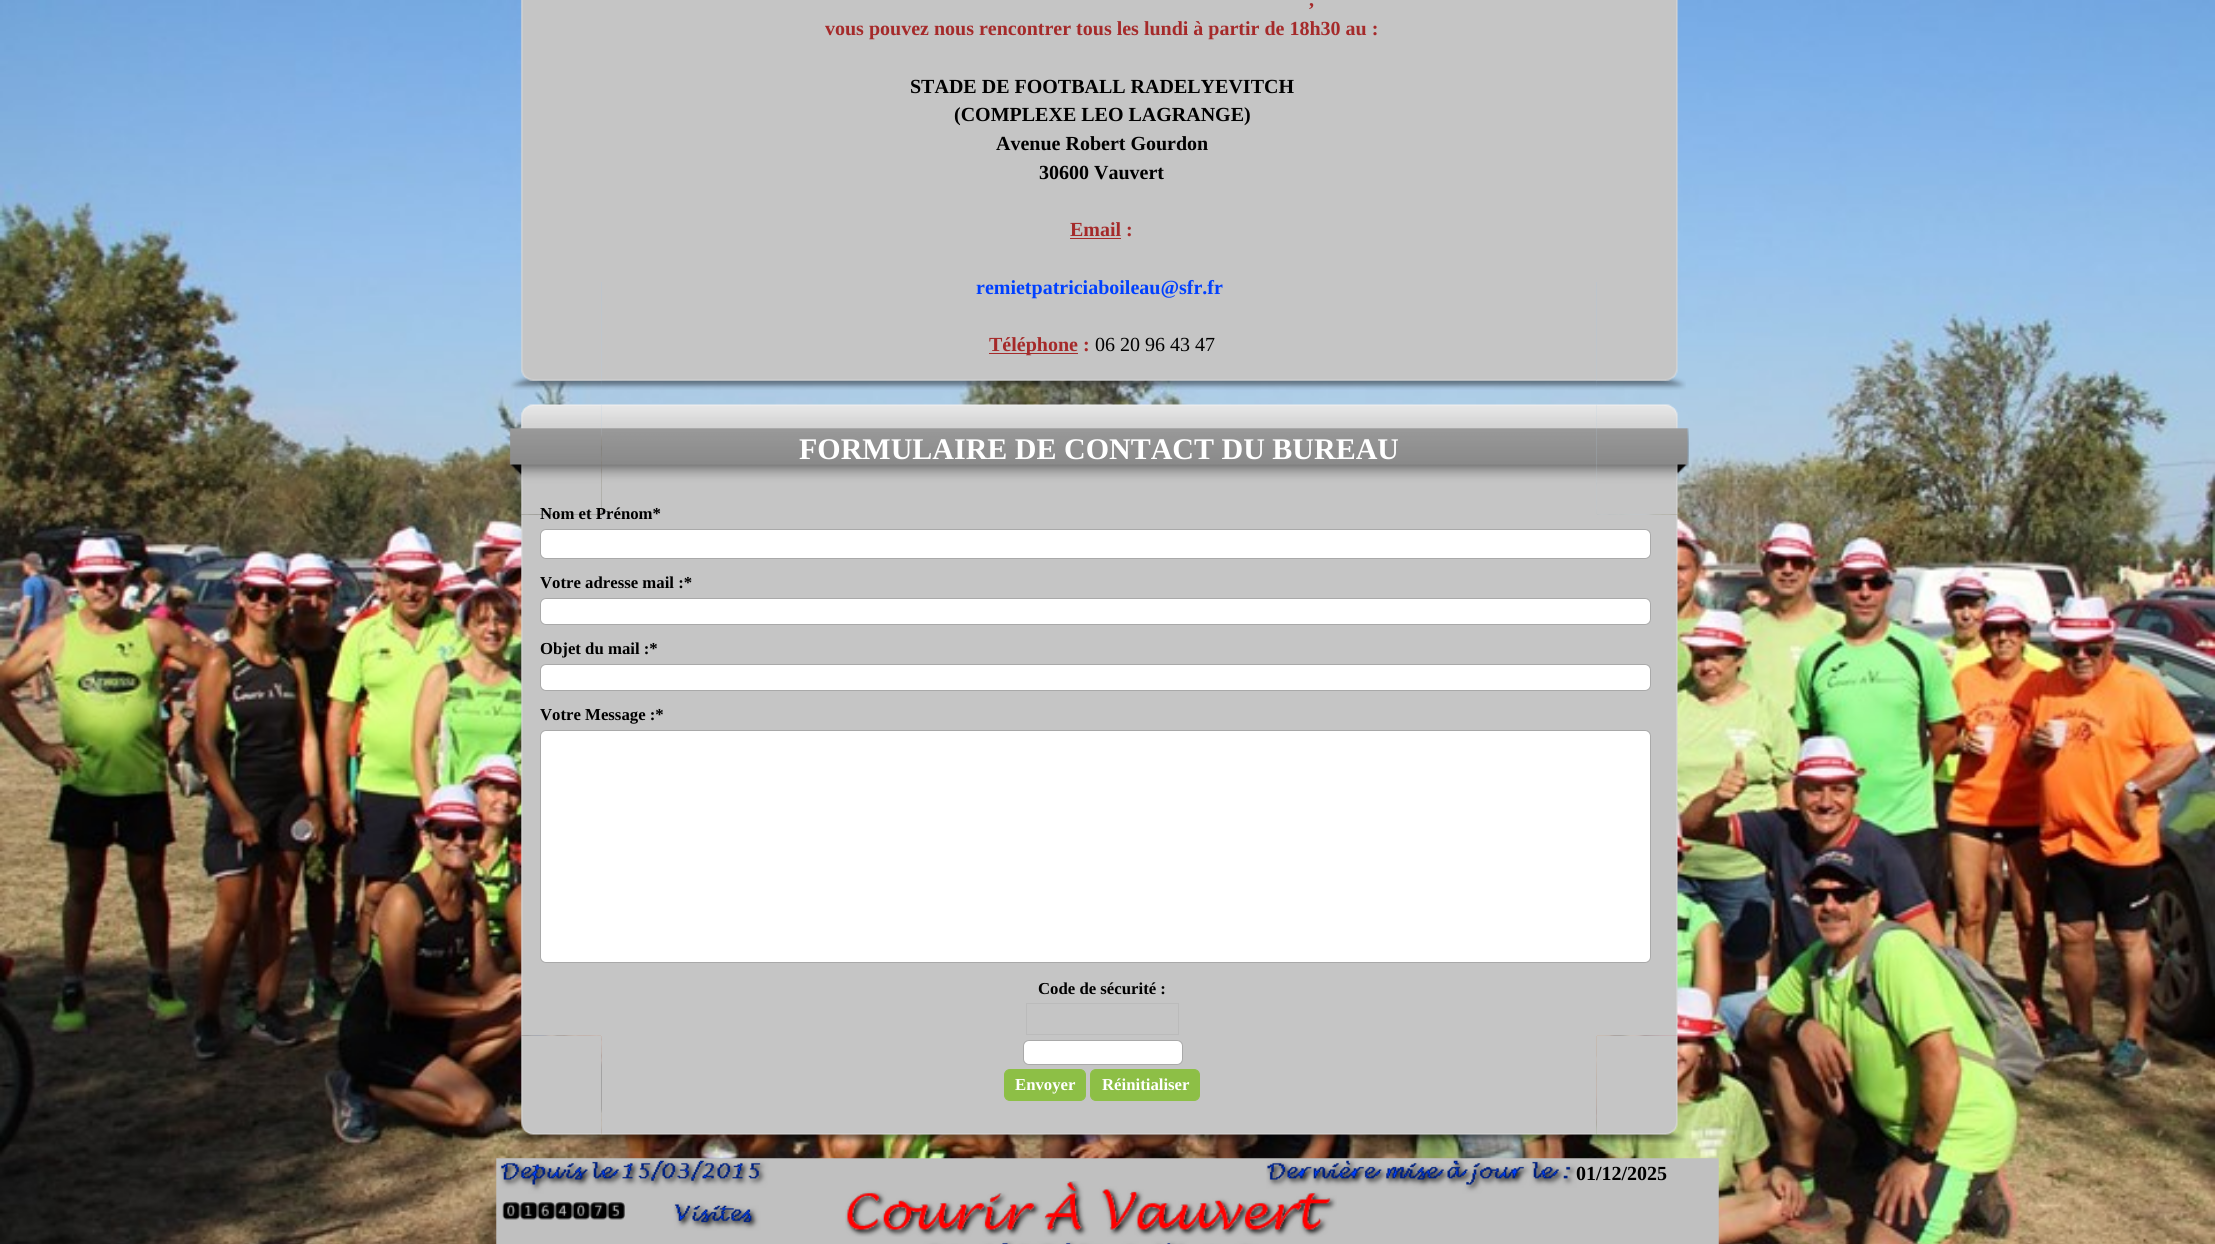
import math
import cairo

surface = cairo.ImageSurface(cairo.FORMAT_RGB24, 2215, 1244)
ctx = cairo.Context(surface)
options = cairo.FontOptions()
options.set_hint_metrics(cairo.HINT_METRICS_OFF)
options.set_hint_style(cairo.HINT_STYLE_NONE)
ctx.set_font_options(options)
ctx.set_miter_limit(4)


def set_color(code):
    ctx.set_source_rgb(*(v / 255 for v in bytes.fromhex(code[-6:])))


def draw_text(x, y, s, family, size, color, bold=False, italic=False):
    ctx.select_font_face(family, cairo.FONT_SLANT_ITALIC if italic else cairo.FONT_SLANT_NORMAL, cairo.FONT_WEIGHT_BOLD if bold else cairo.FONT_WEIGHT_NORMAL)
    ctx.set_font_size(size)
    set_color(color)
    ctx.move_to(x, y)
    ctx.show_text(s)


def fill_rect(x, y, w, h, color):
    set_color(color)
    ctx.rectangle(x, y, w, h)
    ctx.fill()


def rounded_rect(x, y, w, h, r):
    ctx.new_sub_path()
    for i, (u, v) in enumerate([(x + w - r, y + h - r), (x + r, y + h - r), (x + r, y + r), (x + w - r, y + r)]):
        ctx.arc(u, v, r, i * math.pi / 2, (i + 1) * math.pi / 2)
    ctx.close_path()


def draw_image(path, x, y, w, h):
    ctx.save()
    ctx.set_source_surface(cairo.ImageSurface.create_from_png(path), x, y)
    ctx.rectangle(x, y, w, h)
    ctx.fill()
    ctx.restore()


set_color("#ffffff")
ctx.paint()
draw_image("assets/img1.png", 0, 0, 2215, 1244)
draw_image("assets/img2.png", 521, 0, 80, 282)
fill_rect(601, 0, 996, 282, "#c5c5c5")
draw_image("assets/img3.png", 1597, 0, 81, 282)
draw_image("assets/img5.png", 601, 282, 996, 108)
draw_image("assets/img4.png", 510, 282, 92, 108)
draw_image("assets/img6.png", 1596, 282, 90, 108)
draw_text(1309, 6, ",", "Liberation Serif", 20, "#a52a2a", bold=True)
draw_text(825, 35, "vous pouvez nous rencontrer tous les lundi à partir de 18h30 au :", "Liberation Serif", 20, "#a52a2a", bold=True)
draw_text(910, 93, "STADE DE FOOTBALL RADELYEVITCH", "Liberation Serif", 20, "#000000", bold=True)
draw_text(954, 121, "(COMPLEXE LEO LAGRANGE)", "Liberation Serif", 20, "#000000", bold=True)
draw_text(996, 150, "Avenue Robert Gourdon", "Liberation Serif", 20, "#000000", bold=True)
draw_text(1039, 179, "30600 Vauvert", "Liberation Serif", 20, "#000000", bold=True)
draw_text(1070, 236, "Email :", "Liberation Serif", 20, "#a52a2a", bold=True)
fill_rect(1070, 238, 51, 1, "#a52a2a")
draw_text(976, 294, "remietpatriciaboileau@sfr.fr", "Liberation Serif", 20, "#0040ff", bold=True)
fill_rect(989, 353, 89, 1, "#a52a2a")
draw_text(989, 351, "Téléphone :", "Liberation Serif", 20, "#a52a2a", bold=True)
draw_text(1095, 351, "06 20 96 43 47", "Liberation Serif", 20, "#000000")
draw_image("assets/img8.png", 601, 404, 996, 110)
fill_rect(601, 514, 996, 522, "#c5c5c5")
draw_image("assets/img7.png", 509, 404, 93, 111)
draw_image("assets/img9.png", 1596, 404, 93, 111)
draw_image("assets/img10.png", 521, 514, 80, 522)
draw_image("assets/img11.png", 1597, 514, 81, 522)
draw_image("assets/img13.png", 601, 1036, 996, 108)
draw_image("assets/img12.png", 511, 1035, 91, 108)
draw_image("assets/img14.png", 1596, 1035, 90, 108)
draw_text(799, 459, "FORMULAIRE DE CONTACT DU BUREAU", "Liberation Serif", 30, "#ffffff", bold=True)
draw_text(540, 519, "Nom et Prénom*", "Liberation Serif", 16.75, "#000000", bold=True)
set_color("#ffffff")
rounded_rect(540.5, 529.5, 1110, 29, 5.5)
ctx.fill_preserve()
set_color("#a9a9a9")
ctx.set_line_width(1)
ctx.stroke()
draw_text(540, 588, "Votre adresse mail :*", "Liberation Serif", 16.75, "#000000", bold=True)
set_color("#ffffff")
rounded_rect(540.5, 598.5, 1110, 26, 5.5)
ctx.fill_preserve()
set_color("#a9a9a9")
ctx.stroke()
draw_text(540, 654, "Objet du mail :*", "Liberation Serif", 16.75, "#000000", bold=True)
set_color("#ffffff")
rounded_rect(540.5, 664.5, 1110, 26, 5.5)
ctx.fill_preserve()
set_color("#a9a9a9")
ctx.stroke()
draw_text(540, 720, "Votre Message :*", "Liberation Serif", 16.75, "#000000", bold=True)
set_color("#ffffff")
rounded_rect(540.5, 730.5, 1110, 232, 5.5)
ctx.fill_preserve()
set_color("#a9a9a9")
ctx.stroke()
draw_text(1038, 994, "Code de sécurité :", "Liberation Serif", 16.75, "#000000", bold=True)
ctx.rectangle(1026.5, 1003.5, 152, 31)
set_color("#bbbbbb")
ctx.stroke()
set_color("#ffffff")
rounded_rect(1023.5, 1040.5, 159, 24, 5.5)
ctx.fill_preserve()
set_color("#a9a9a9")
ctx.stroke()
set_color("#8dbf46")
rounded_rect(1004.5, 1069.5, 81, 31, 5.5)
ctx.fill_preserve()
ctx.stroke()
draw_text(1015, 1090, "Envoyer", "Liberation Serif", 16.75, "#ffffff", bold=True)
set_color("#8dbf46")
rounded_rect(1090.5, 1069.5, 109, 31, 5.5)
ctx.fill_preserve()
ctx.stroke()
draw_text(1102, 1090, "Réinitialiser", "Liberation Serif", 16.75, "#ffffff", bold=True)
draw_image("assets/img15.png", 496, 1158, 1223, 86)
draw_text(1576, 1180, "01/12/2025", "Liberation Serif", 20, "#000000", bold=True)
draw_image("assets/img16.png", 502, 1202, 123, 18)
draw_image("assets/img17.png", 845, 1181, 492, 56)
surface.write_to_png("output.png")
